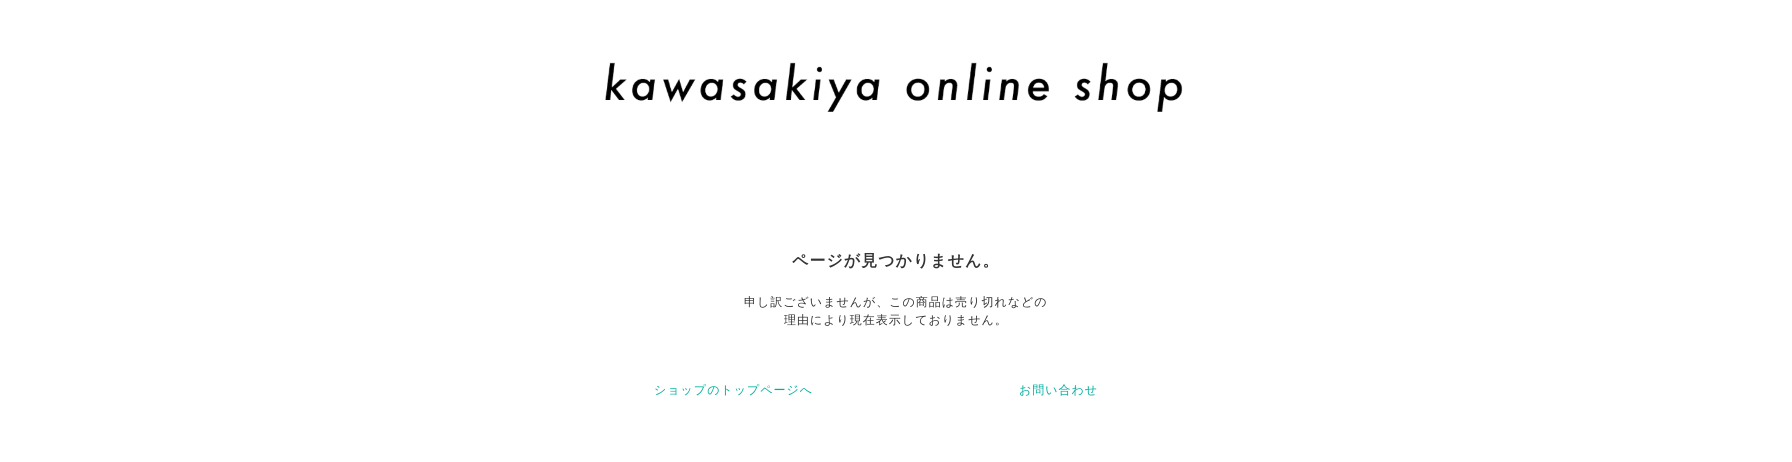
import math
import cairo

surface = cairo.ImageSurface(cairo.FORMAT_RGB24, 1792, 462)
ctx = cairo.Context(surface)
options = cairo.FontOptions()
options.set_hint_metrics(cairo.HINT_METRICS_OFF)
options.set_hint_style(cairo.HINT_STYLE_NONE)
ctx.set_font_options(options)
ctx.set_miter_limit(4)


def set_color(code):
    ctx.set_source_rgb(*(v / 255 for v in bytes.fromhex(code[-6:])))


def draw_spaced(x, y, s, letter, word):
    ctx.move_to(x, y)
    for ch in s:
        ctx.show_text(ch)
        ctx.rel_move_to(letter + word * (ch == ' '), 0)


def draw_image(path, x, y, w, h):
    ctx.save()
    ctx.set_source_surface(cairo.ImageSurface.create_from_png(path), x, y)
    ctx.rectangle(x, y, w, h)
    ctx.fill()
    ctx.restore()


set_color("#ffffff")
ctx.paint()
draw_image("assets/img1.png", 605, 62, 578, 50)
ctx.select_font_face("WenQuanYi Zen Hei", cairo.FONT_SLANT_NORMAL, cairo.FONT_WEIGHT_BOLD)
ctx.set_font_size(16)
set_color("#333333")
draw_spaced(792, 266, "ページが見つかりません。", 1, 0)
ctx.select_font_face("WenQuanYi Zen Hei Medium")
ctx.set_font_size(12)
draw_spaced(744, 306, "申し訳ございませんが、この商品は売り切れなどの", 1, 0)
draw_spaced(784, 324, "理由により現在表示しておりません。", 1, 0)
set_color("#00ae9f")
draw_spaced(654, 394, "ショップのトップページへ", 1, 0)
draw_spaced(1019, 394, "お問い合わせ", 1, 0)
surface.write_to_png("output.png")
